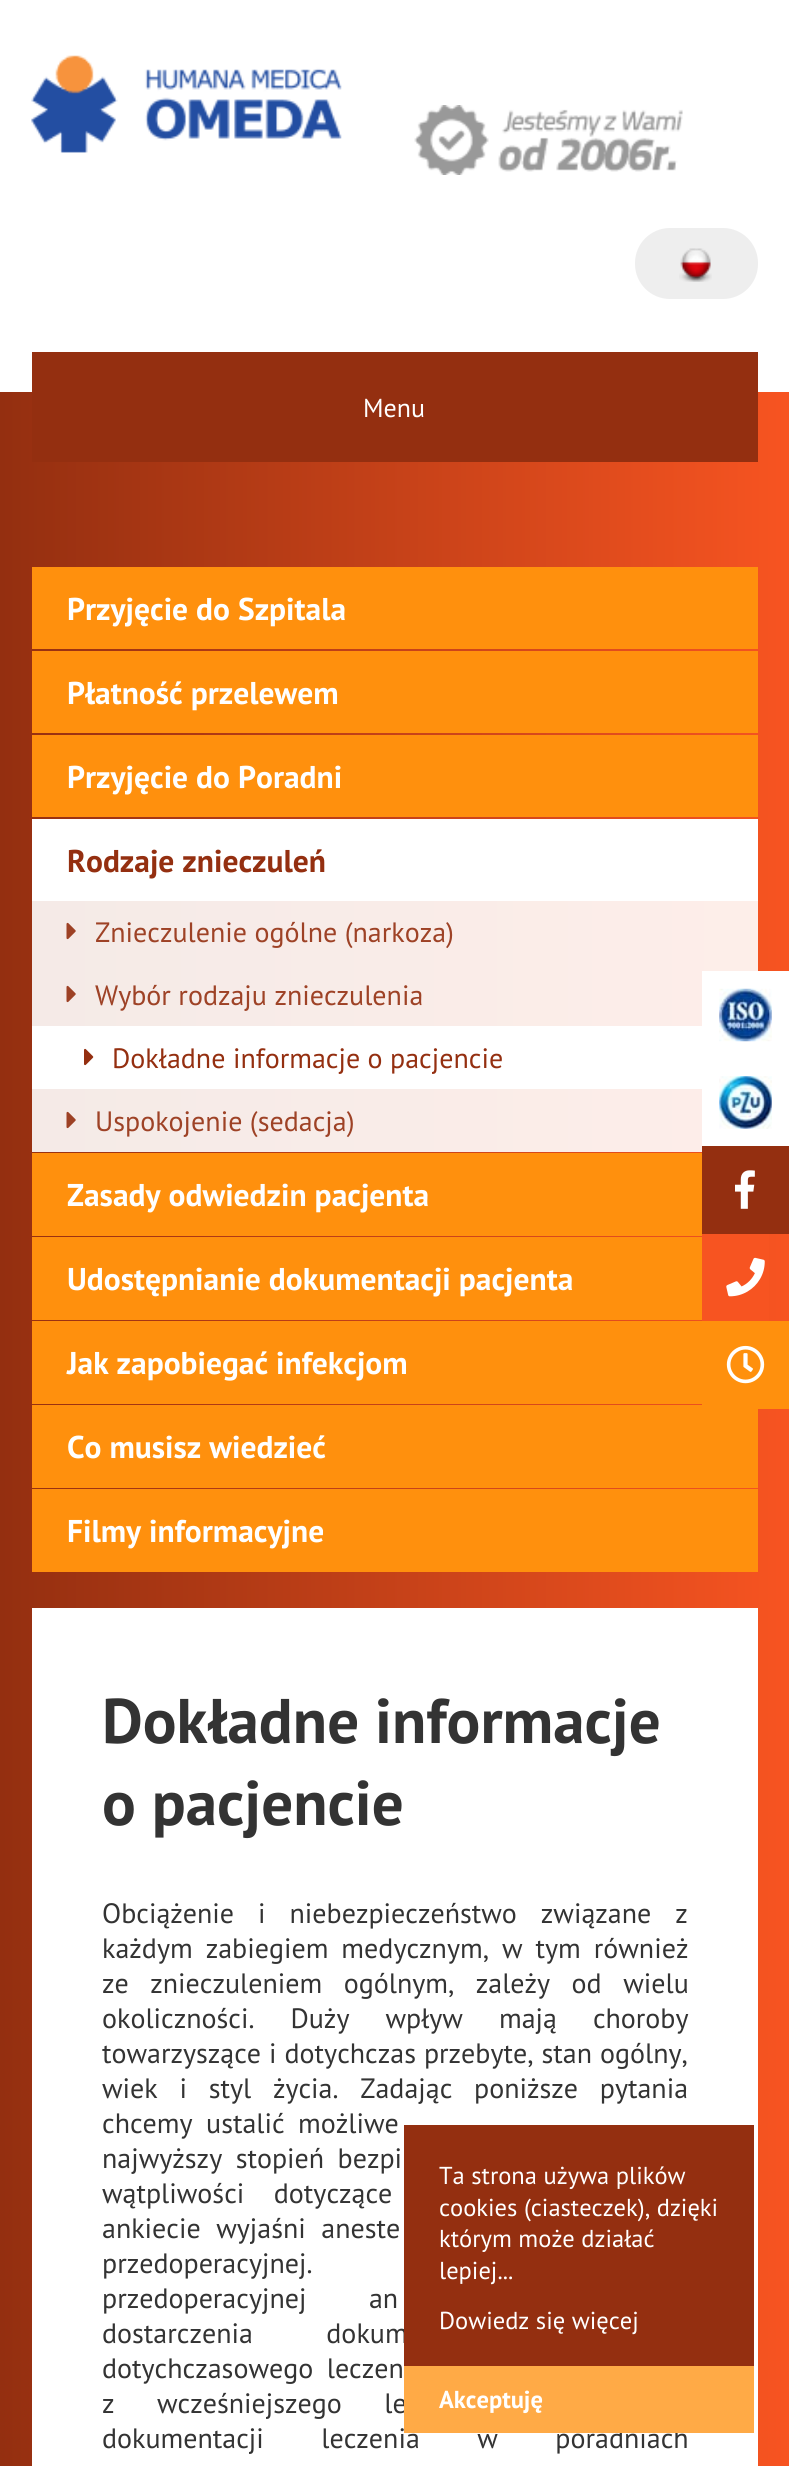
import math
import cairo

surface = cairo.ImageSurface(cairo.FORMAT_RGB24, 789, 2466)
ctx = cairo.Context(surface)
options = cairo.FontOptions()
options.set_hint_metrics(cairo.HINT_METRICS_OFF)
options.set_hint_style(cairo.HINT_STYLE_NONE)
ctx.set_font_options(options)
ctx.set_miter_limit(4)


def set_color(code):
    ctx.set_source_rgb(*(v / 255 for v in bytes.fromhex(code[-6:])))


def draw_text(x, y, s, family, size, color, bold=False, italic=False):
    ctx.select_font_face(family, cairo.FONT_SLANT_ITALIC if italic else cairo.FONT_SLANT_NORMAL, cairo.FONT_WEIGHT_BOLD if bold else cairo.FONT_WEIGHT_NORMAL)
    ctx.set_font_size(size)
    set_color(color)
    ctx.move_to(x, y)
    ctx.show_text(s)


def draw_spaced(x, y, s, letter, word):
    ctx.move_to(x, y)
    for ch in s:
        ctx.show_text(ch)
        ctx.rel_move_to(letter + word * (ch == ' '), 0)


def fill_rect(x, y, w, h, color):
    set_color(color)
    ctx.rectangle(x, y, w, h)
    ctx.fill()


def rounded_rect(x, y, w, h, r):
    ctx.new_sub_path()
    for i, (u, v) in enumerate([(x + w - r, y + h - r), (x + r, y + h - r), (x + r, y + r), (x + w - r, y + r)]):
        ctx.arc(u, v, r, i * math.pi / 2, (i + 1) * math.pi / 2)
    ctx.close_path()


def draw_image(path, x, y, w, h):
    ctx.save()
    ctx.set_source_surface(cairo.ImageSurface.create_from_png(path), x, y)
    ctx.rectangle(x, y, w, h)
    ctx.fill()
    ctx.restore()


set_color("#ffffff")
ctx.paint()
draw_image("assets/img1.png", 31, 55, 311, 98)
draw_image("assets/img2.png", 414, 105, 269, 70)
set_color("#eeeeee")
rounded_rect(635, 228, 123, 71, 35)
ctx.fill()
draw_image("assets/img3.png", 679, 248, 33, 34)
gradient = cairo.LinearGradient(0, 1708, 789, 1708)
gradient.add_color_stop_rgba(0, 0.58, 0.184, 0.063, 1)
gradient.add_color_stop_rgba(1, 0.969, 0.329, 0.129, 1)
ctx.set_source(gradient)
ctx.rectangle(0, 392, 789, 2074)
ctx.fill()
fill_rect(32, 352, 726, 110, "#942f10")
draw_text(363, 417, "Menu", "PT Sans", 26, "#ffffff")
gradient = cairo.LinearGradient(0, 1708, 789, 1708)
gradient.add_color_stop_rgba(0, 0.957, 0.918, 0.906, 1)
gradient.add_color_stop_rgba(1, 0.996, 0.933, 0.914, 1)
ctx.set_source(gradient)
ctx.rectangle(32, 1089, 670, 63)
ctx.fill()
ctx.rectangle(32, 963, 726, 63)
ctx.fill()
ctx.rectangle(32, 901, 726, 62)
ctx.fill()
fill_rect(32, 567, 726, 82, "#ff900d")
draw_text(67, 620, "Przyjęcie do Szpitala", "PT Sans", 31.5, "#ffffff", bold=True)
fill_rect(32, 651, 726, 82, "#ff900d")
draw_text(67, 704, "Płatność przelewem", "PT Sans", 31.5, "#ffffff", bold=True)
fill_rect(32, 735, 726, 82, "#ff900d")
draw_text(67, 788, "Przyjęcie do Poradni", "PT Sans", 31.5, "#ffffff", bold=True)
fill_rect(32, 819, 726, 82, "#ffffff")
draw_text(67, 872, "Rodzaje znieczuleń", "PT Sans", 31.5, "#942f10", bold=True)
draw_image("assets/img4.png", 66, 922, 10, 18)
draw_text(95, 942, "Znieczulenie ogólne (narkoza)", "PT Sans", 28, "#9e4226")
draw_image("assets/img4.png", 66, 985, 10, 18)
draw_text(95, 1005, "Wybór rodzaju znieczulenia", "PT Sans", 28, "#9e4226")
fill_rect(32, 1026, 670, 63, "#ffffff")
draw_image("assets/img5.png", 84, 1048, 10, 18)
draw_text(112, 1068, "Dokładne informacje o pacjencie", "PT Sans", 28, "#942f10")
draw_image("assets/img4.png", 66, 1111, 10, 18)
draw_text(95, 1131, "Uspokojenie (sedacja)", "PT Sans", 28, "#9e4226")
fill_rect(32, 1153, 670, 83, "#ff900d")
draw_text(67, 1206, "Zasady odwiedzin pacjenta", "PT Sans", 31.5, "#ffffff", bold=True)
fill_rect(32, 1237, 670, 83, "#ff900d")
draw_text(67, 1290, "Udostępnianie dokumentacji pacjenta", "PT Sans", 31.5, "#ffffff", bold=True)
fill_rect(32, 1321, 670, 83, "#ff900d")
draw_text(67, 1374, "Jak zapobiegać infekcjom", "PT Sans", 31.5, "#ffffff", bold=True)
fill_rect(32, 1405, 726, 83, "#ff900d")
draw_text(67, 1458, "Co musisz wiedzieć", "PT Sans", 31.5, "#ffffff", bold=True)
fill_rect(32, 1489, 726, 83, "#ff900d")
draw_text(67, 1542, "Filmy informacyjne", "PT Sans", 31.5, "#ffffff", bold=True)
fill_rect(32, 1608, 726, 858, "#ffffff")
draw_text(102, 1743, "Dokładne informacje", "PT Sans", 63, "#333333", bold=True)
draw_text(102, 1825, "o pacjencie", "PT Sans", 63, "#333333", bold=True)
ctx.select_font_face("PT Sans")
ctx.set_font_size(28)
draw_spaced(102, 1923, "Obciążenie i niebezpieczeństwo związane z", 0, 16.5)
draw_spaced(102, 1958, "każdym zabiegiem medycznym, w tym również", 0, 5.5)
draw_spaced(102, 1993, "ze znieczuleniem ogólnym, zależy od wielu", 0, 14)
draw_spaced(102, 2028, "okoliczności. Duży wpływ mają choroby", 0, 28.5)
draw_spaced(102, 2063, "towarzyszące i dotychczas przebyte, stan ogólny,", 0, 0.5)
draw_spaced(102, 2098, "wiek i styl życia. Zadając poniższe pytania", 0, 14.25)
draw_spaced(102, 2133, "chcemy ustalić możliwe", 0, 6)
draw_spaced(102, 2168, "najwyższy stopień bezpi", 0, 6)
draw_spaced(102, 2203, "wątpliwości dotyczące", 0, 22)
draw_spaced(102, 2238, "ankiecie wyjaśni aneste", 0, 8)
draw_spaced(102, 2273, "przedoperacyjnej.", 0, 94)
draw_spaced(102, 2308, "przedoperacyjnej an", 0, 55)
draw_spaced(102, 2343, "dostarczenia dokum", 0, 66)
draw_spaced(102, 2378, "dotychczasowego leczen", 0, 6)
draw_spaced(102, 2413, "z wcześniejszego le", 0, 35)
draw_spaced(102, 2448, "dokumentacji leczenia w poradniach", 0, 50)
fill_rect(702, 971, 87, 175, "#ffffff")
draw_image("assets/img6.png", 719, 988, 53, 54)
draw_image("assets/img7.png", 719, 1076, 53, 53)
fill_rect(702, 1146, 87, 88, "#942f10")
draw_image("assets/img8.png", 735, 1170, 20, 39)
fill_rect(702, 1234, 67, 87, "#f75421")
draw_image("assets/img9.png", 726, 1257, 39, 40)
fill_rect(702, 1321, 87, 88, "#ff900d")
draw_image("assets/img10.png", 726, 1345, 39, 39)
fill_rect(404, 2125, 350, 241, "#942f10")
draw_text(439, 2184, "Ta strona używa plików", "PT Sans", 24.5, "#ffffff")
draw_text(439, 2216, "cookies (ciasteczek), dzięki", "PT Sans", 24.5, "#ffffff")
draw_text(439, 2247, "którym może działać", "PT Sans", 24.5, "#ffffff")
draw_text(439, 2279, "lepiej...", "PT Sans", 24.5, "#ffffff")
draw_text(439, 2329, "Dowiedz się więcej", "PT Sans", 24.5, "#ffffff")
fill_rect(404, 2366, 350, 67, "#ffaa46")
draw_text(439, 2408, "Akceptuję", "PT Sans", 24.5, "#ffffff", bold=True)
surface.write_to_png("output.png")
